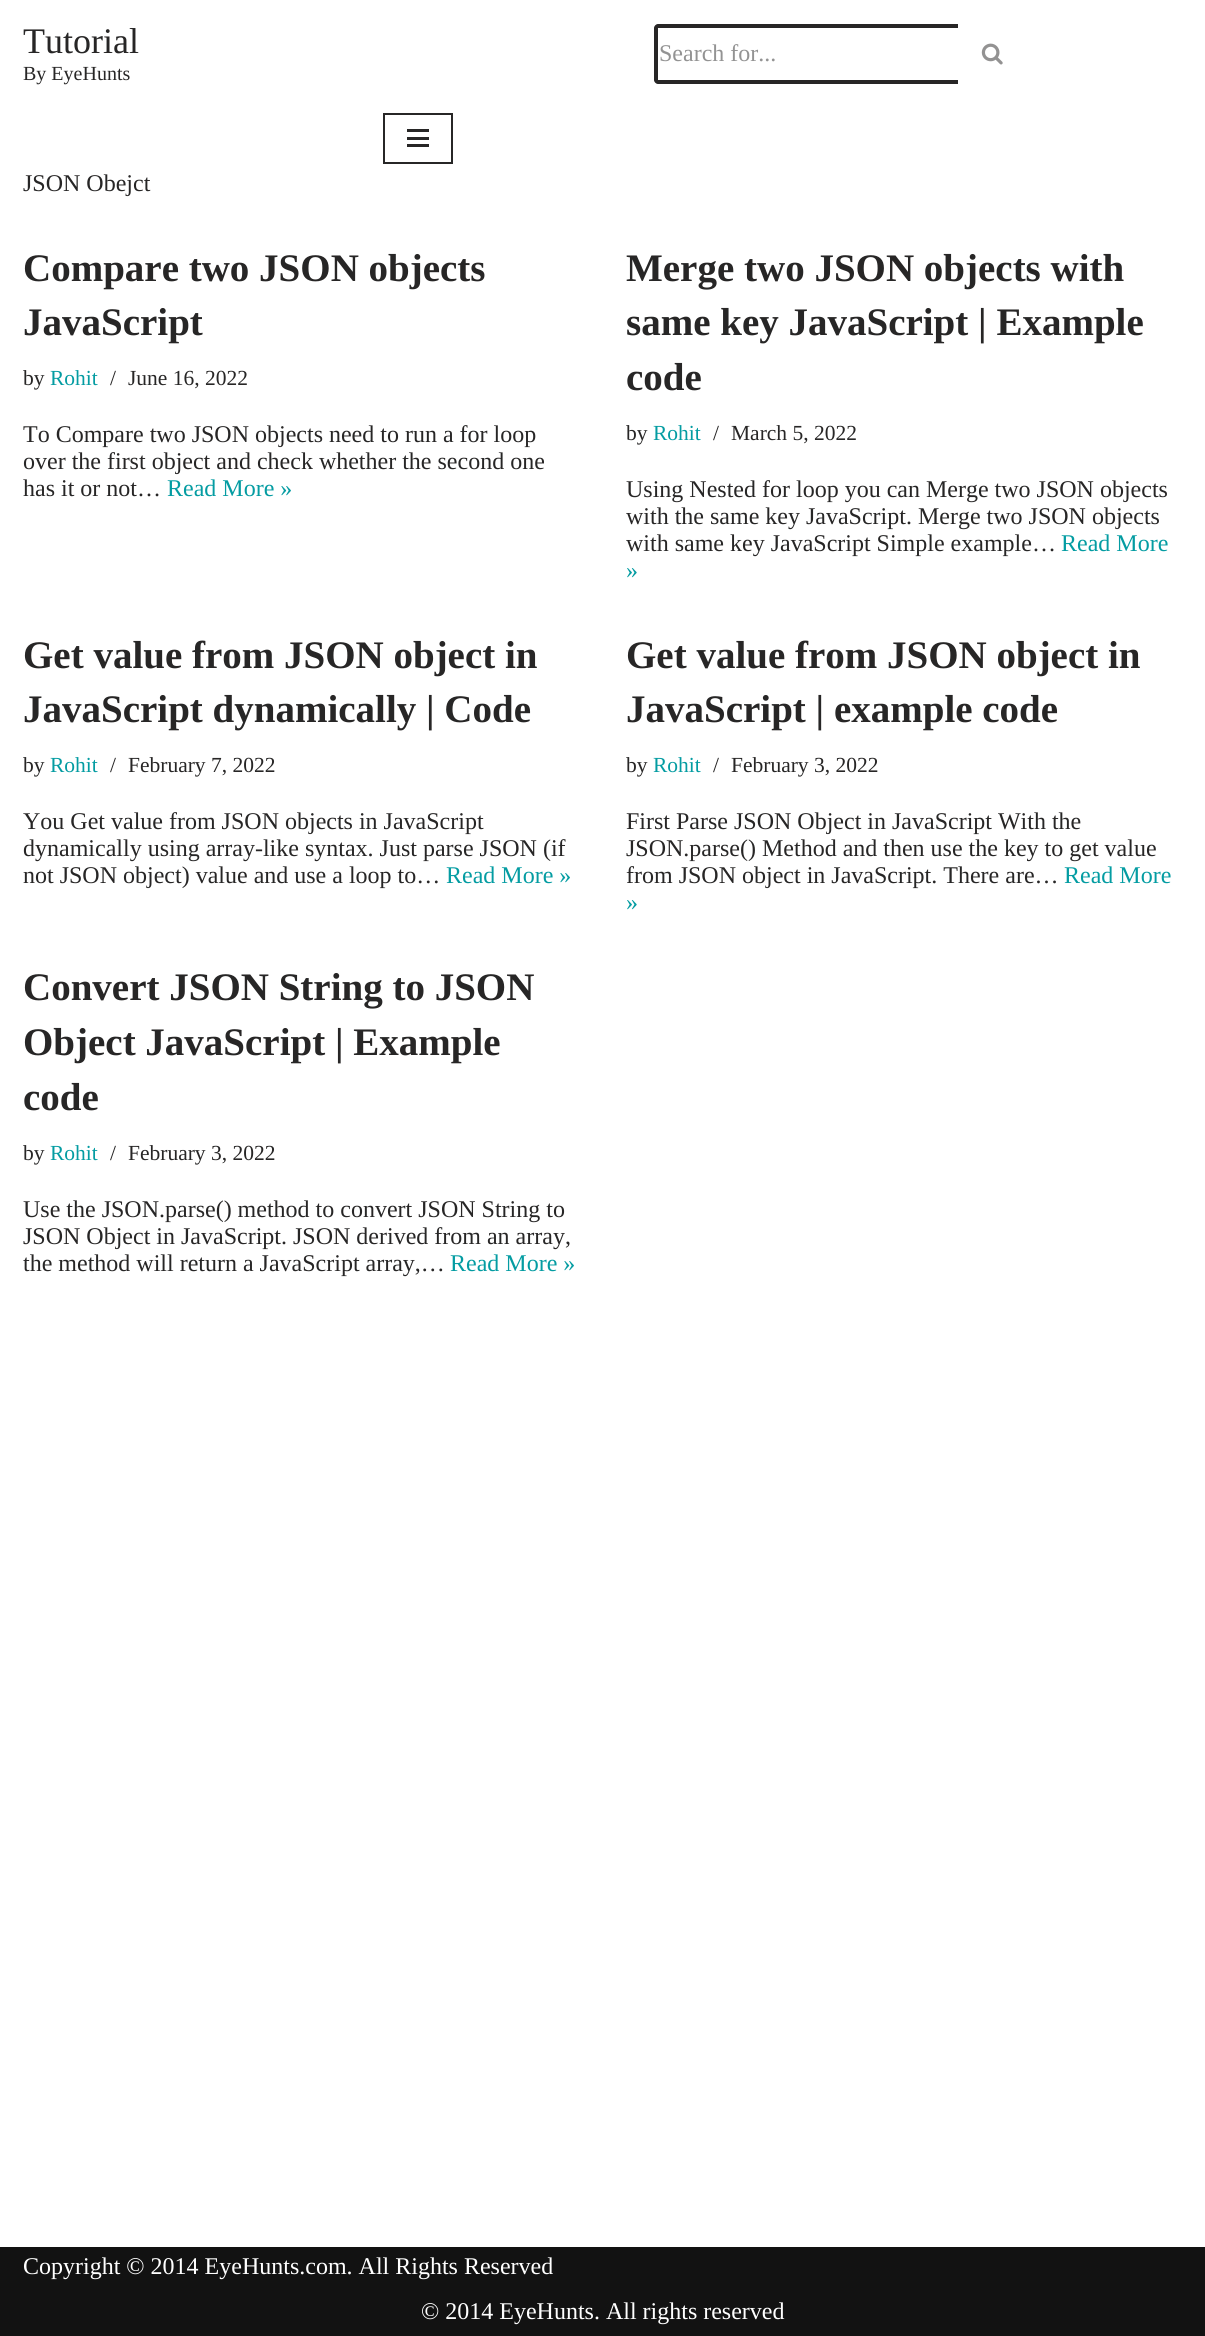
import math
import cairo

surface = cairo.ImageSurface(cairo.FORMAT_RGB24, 1205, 2336)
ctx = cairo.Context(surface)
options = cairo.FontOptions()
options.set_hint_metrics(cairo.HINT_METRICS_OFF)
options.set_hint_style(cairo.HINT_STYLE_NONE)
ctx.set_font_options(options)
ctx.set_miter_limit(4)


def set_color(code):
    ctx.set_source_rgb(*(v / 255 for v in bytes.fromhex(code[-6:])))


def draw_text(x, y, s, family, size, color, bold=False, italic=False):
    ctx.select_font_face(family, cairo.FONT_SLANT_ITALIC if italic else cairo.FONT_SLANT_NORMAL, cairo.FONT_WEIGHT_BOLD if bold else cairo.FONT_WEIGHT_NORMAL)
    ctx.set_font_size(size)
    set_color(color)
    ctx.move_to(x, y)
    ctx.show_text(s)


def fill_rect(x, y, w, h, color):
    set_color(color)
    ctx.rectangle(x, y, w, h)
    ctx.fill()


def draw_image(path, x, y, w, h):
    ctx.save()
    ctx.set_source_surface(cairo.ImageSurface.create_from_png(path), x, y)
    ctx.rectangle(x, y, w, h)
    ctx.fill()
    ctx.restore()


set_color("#ffffff")
ctx.paint()
draw_text(23, 53, "Tutorial", "Liberation Serif", 36, "#272626")
draw_text(23, 80, "By EyeHunts", "Liberation Serif", 20, "#272626")
ctx.set_fill_rule(cairo.FILL_RULE_EVEN_ODD)
ctx.new_path()
ctx.move_to(658, 24)
ctx.line_to(958, 24)
ctx.line_to(958, 84)
ctx.line_to(658, 84)
ctx.curve_to(656, 84, 654, 82, 654, 80)
ctx.line_to(654, 28)
ctx.curve_to(654, 26, 656, 24, 658, 24)
ctx.close_path()
ctx.move_to(658, 28)
ctx.line_to(958, 28)
ctx.line_to(958, 80)
ctx.line_to(658, 80)
ctx.close_path()
ctx.fill()
draw_text(659, 61, "Search for...", "Liberation Serif", 24, "#939393")
draw_image("assets/img1.png", 981, 43, 22, 22)
ctx.rectangle(384, 114, 68, 49)
set_color("#272626")
ctx.stroke()
fill_rect(407, 129, 22, 3, "#272626")
fill_rect(407, 137, 22, 3, "#272626")
fill_rect(407, 144, 22, 3, "#272626")
draw_text(23, 191, "JSON Obejct", "Liberation Serif", 24, "#272626")
draw_text(23, 281, "Compare two JSON objects", "Liberation Serif", 39, "#272626", bold=True)
draw_text(23, 335, "JavaScript", "Liberation Serif", 39, "#272626", bold=True)
draw_text(23, 385, "by", "Liberation Serif", 21.5, "#272626")
draw_text(50, 385, "Rohit", "Liberation Serif", 21.5, "#049ca2")
draw_text(110, 385, "/", "Liberation Serif", 21.5, "#272626")
draw_text(128, 385, "June 16, 2022", "Liberation Serif", 21.5, "#272626")
draw_text(23, 442, "To Compare two JSON objects need to run a for loop", "Liberation Serif", 24, "#272626")
draw_text(23, 469, "over the first object and check whether the second one", "Liberation Serif", 24, "#272626")
draw_text(23, 496, "has it or not…", "Liberation Serif", 24, "#272626")
draw_text(167, 496, "Read More »", "Liberation Serif", 24, "#049ca2")
draw_text(626, 281, "Merge two JSON objects with", "Liberation Serif", 39, "#272626", bold=True)
draw_text(626, 335, "same key JavaScript | Example", "Liberation Serif", 39, "#272626", bold=True)
draw_text(626, 390, "code", "Liberation Serif", 39, "#272626", bold=True)
draw_text(626, 440, "by", "Liberation Serif", 21.5, "#272626")
draw_text(653, 440, "Rohit", "Liberation Serif", 21.5, "#049ca2")
draw_text(713, 440, "/", "Liberation Serif", 21.5, "#272626")
draw_text(731, 440, "March 5, 2022", "Liberation Serif", 21.5, "#272626")
draw_text(626, 497, "Using Nested for loop you can Merge two JSON objects", "Liberation Serif", 24, "#272626")
draw_text(626, 524, "with the same key JavaScript. Merge two JSON objects", "Liberation Serif", 24, "#272626")
draw_text(626, 551, "with same key JavaScript Simple example…", "Liberation Serif", 24, "#272626")
draw_text(1061, 551, "Read More", "Liberation Serif", 24, "#049ca2")
draw_text(626, 578, "»", "Liberation Serif", 24, "#049ca2")
draw_text(23, 668, "Get value from JSON object in", "Liberation Serif", 39, "#272626", bold=True)
draw_text(23, 722, "JavaScript dynamically | Code", "Liberation Serif", 39, "#272626", bold=True)
draw_text(23, 772, "by", "Liberation Serif", 21.5, "#272626")
draw_text(50, 772, "Rohit", "Liberation Serif", 21.5, "#049ca2")
draw_text(110, 772, "/", "Liberation Serif", 21.5, "#272626")
draw_text(128, 772, "February 7, 2022", "Liberation Serif", 21.5, "#272626")
draw_text(23, 829, "You Get value from JSON objects in JavaScript", "Liberation Serif", 24, "#272626")
draw_text(23, 856, "dynamically using array-like syntax. Just parse JSON (if", "Liberation Serif", 24, "#272626")
draw_text(23, 883, "not JSON object) value and use a loop to…", "Liberation Serif", 24, "#272626")
draw_text(446, 883, "Read More »", "Liberation Serif", 24, "#049ca2")
draw_text(626, 668, "Get value from JSON object in", "Liberation Serif", 39, "#272626", bold=True)
draw_text(626, 722, "JavaScript | example code", "Liberation Serif", 39, "#272626", bold=True)
draw_text(626, 772, "by", "Liberation Serif", 21.5, "#272626")
draw_text(653, 772, "Rohit", "Liberation Serif", 21.5, "#049ca2")
draw_text(713, 772, "/", "Liberation Serif", 21.5, "#272626")
draw_text(731, 772, "February 3, 2022", "Liberation Serif", 21.5, "#272626")
draw_text(626, 829, "First Parse JSON Object in JavaScript With the", "Liberation Serif", 24, "#272626")
draw_text(626, 856, "JSON.parse() Method and then use the key to get value", "Liberation Serif", 24, "#272626")
draw_text(626, 883, "from JSON object in JavaScript. There are…", "Liberation Serif", 24, "#272626")
draw_text(1064, 883, "Read More", "Liberation Serif", 24, "#049ca2")
draw_text(626, 910, "»", "Liberation Serif", 24, "#049ca2")
draw_text(23, 1000, "Convert JSON String to JSON", "Liberation Serif", 39, "#272626", bold=True)
draw_text(23, 1055, "Object JavaScript | Example", "Liberation Serif", 39, "#272626", bold=True)
draw_text(23, 1110, "code", "Liberation Serif", 39, "#272626", bold=True)
draw_text(23, 1160, "by", "Liberation Serif", 21.5, "#272626")
draw_text(50, 1160, "Rohit", "Liberation Serif", 21.5, "#049ca2")
draw_text(110, 1160, "/", "Liberation Serif", 21.5, "#272626")
draw_text(128, 1160, "February 3, 2022", "Liberation Serif", 21.5, "#272626")
draw_text(23, 1217, "Use the JSON.parse() method to convert JSON String to", "Liberation Serif", 24, "#272626")
draw_text(23, 1244, "JSON Object in JavaScript. JSON derived from an array,", "Liberation Serif", 24, "#272626")
draw_text(23, 1271, "the method will return a JavaScript array,…", "Liberation Serif", 24, "#272626")
draw_text(450, 1271, "Read More »", "Liberation Serif", 24, "#049ca2")
fill_rect(0, 2247, 1205, 89, "#121212")
draw_text(23, 2274, "Copyright © 2014 EyeHunts.com. All Rights Reserved", "Liberation Serif", 24, "#ffffff")
draw_text(421, 2319, "© 2014 EyeHunts. All rights reserved", "Liberation Serif", 24, "#ffffff")
surface.write_to_png("output.png")
